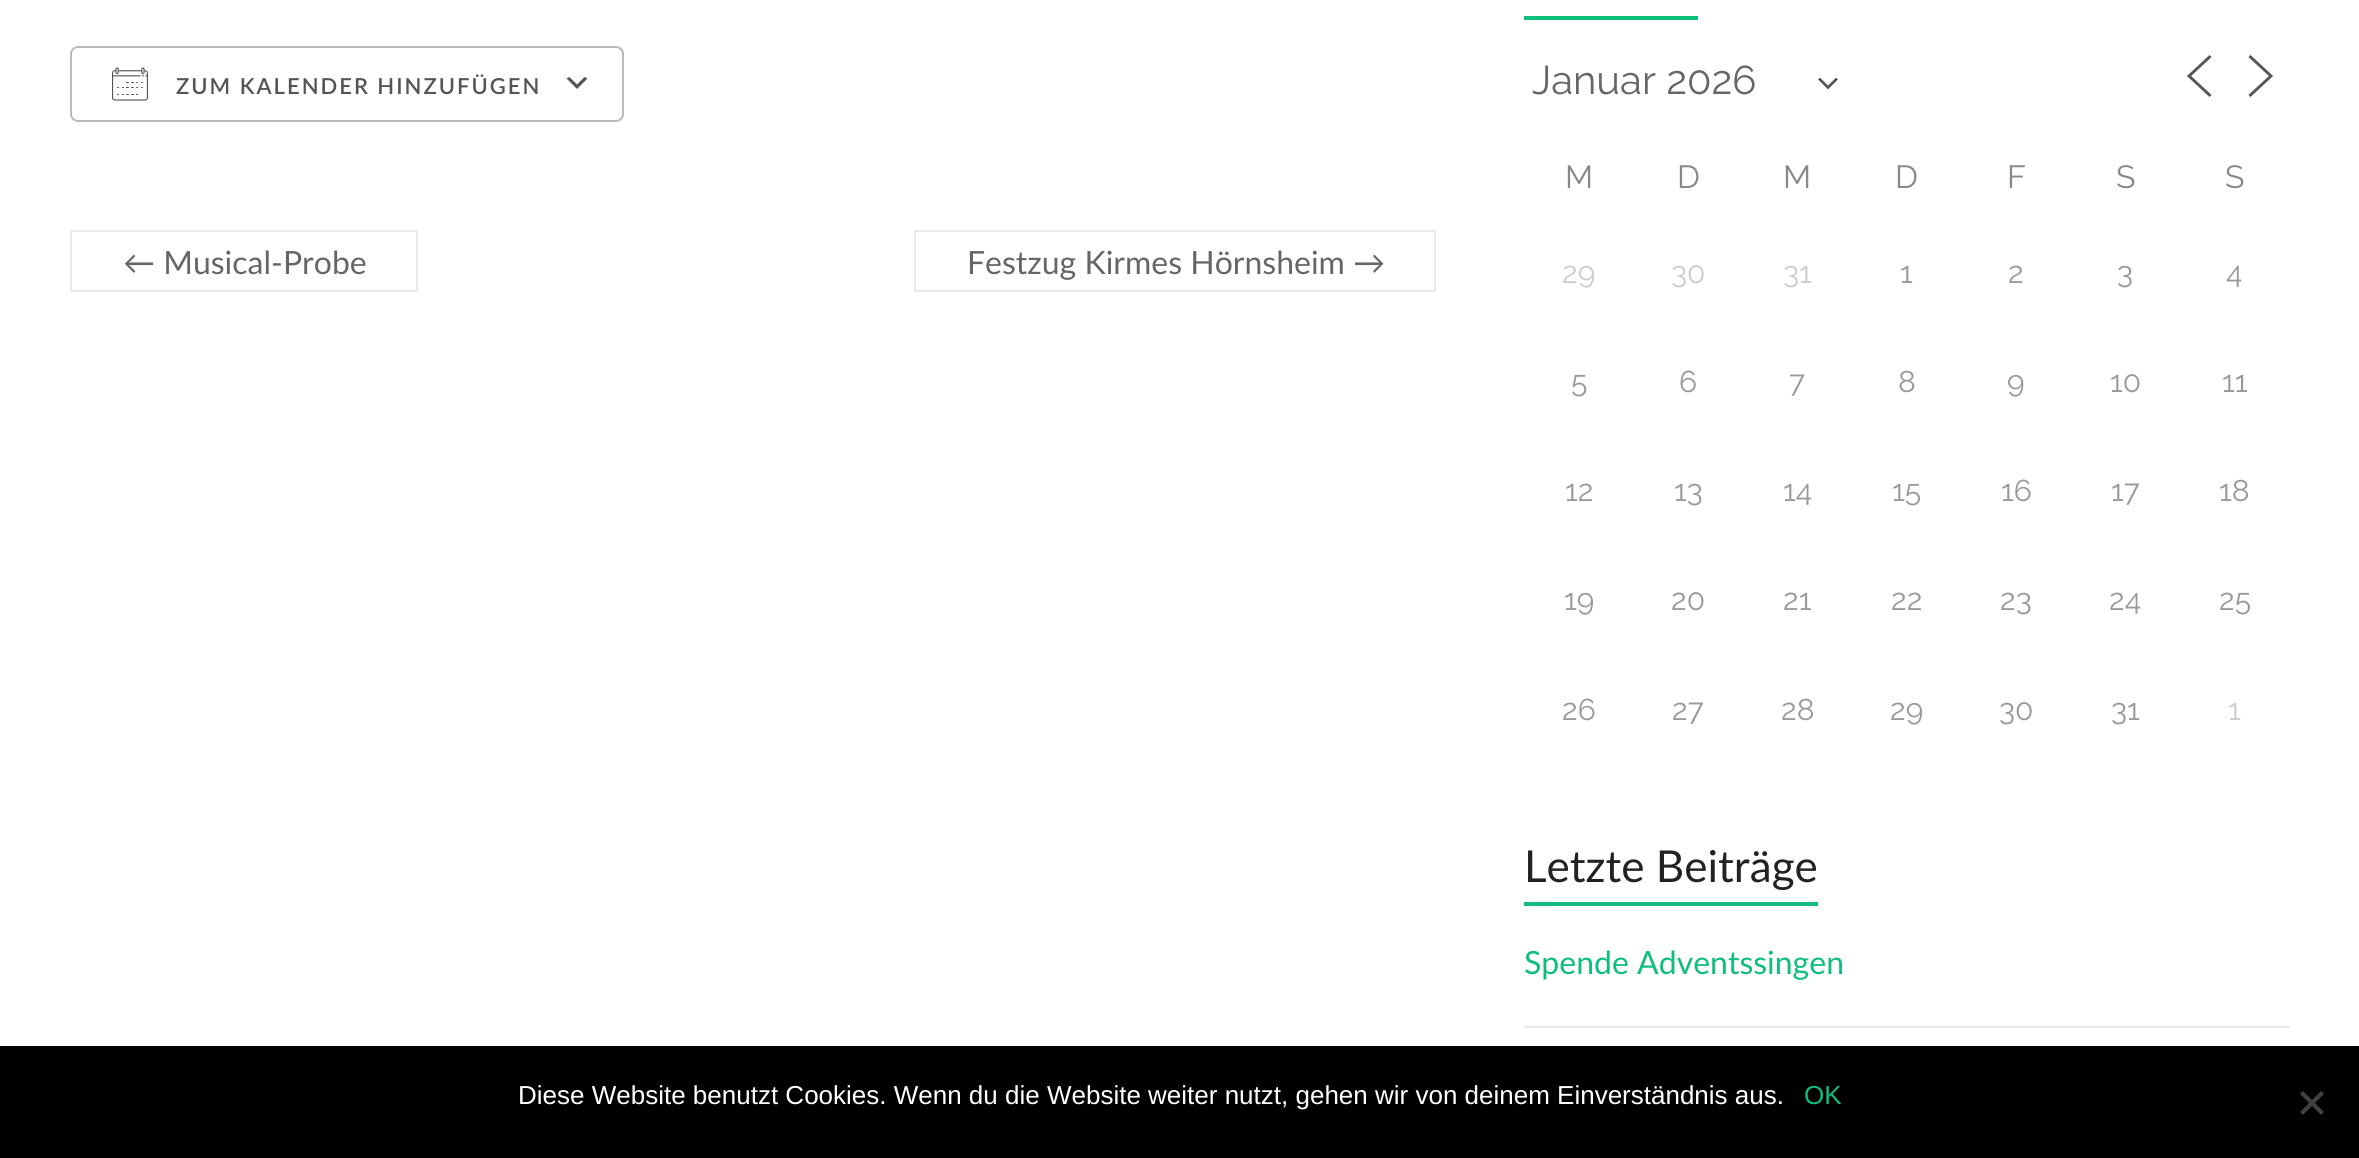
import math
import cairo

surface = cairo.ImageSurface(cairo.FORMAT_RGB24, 2359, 1158)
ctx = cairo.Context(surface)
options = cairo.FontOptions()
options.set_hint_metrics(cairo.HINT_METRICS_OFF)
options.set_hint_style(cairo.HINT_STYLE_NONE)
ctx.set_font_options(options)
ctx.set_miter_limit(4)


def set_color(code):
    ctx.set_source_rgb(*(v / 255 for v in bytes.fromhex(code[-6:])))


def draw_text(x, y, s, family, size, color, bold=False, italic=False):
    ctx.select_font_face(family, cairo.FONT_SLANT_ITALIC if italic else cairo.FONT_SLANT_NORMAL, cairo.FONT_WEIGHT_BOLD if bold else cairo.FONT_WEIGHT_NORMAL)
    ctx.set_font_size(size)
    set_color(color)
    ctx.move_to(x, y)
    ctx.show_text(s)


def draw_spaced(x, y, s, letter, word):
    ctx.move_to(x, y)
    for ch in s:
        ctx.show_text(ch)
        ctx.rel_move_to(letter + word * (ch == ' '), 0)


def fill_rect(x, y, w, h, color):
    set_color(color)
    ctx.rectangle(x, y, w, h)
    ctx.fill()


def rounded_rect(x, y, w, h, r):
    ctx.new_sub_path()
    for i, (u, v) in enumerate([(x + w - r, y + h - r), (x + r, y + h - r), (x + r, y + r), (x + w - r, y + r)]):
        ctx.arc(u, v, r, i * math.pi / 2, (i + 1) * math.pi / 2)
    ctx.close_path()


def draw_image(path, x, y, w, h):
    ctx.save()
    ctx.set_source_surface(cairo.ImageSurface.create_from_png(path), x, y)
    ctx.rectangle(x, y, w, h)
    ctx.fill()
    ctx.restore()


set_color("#ffffff")
ctx.paint()
set_color("#555555")
ctx.new_path()
ctx.move_to(569.5, 77)
ctx.line_to(577, 84.5)
ctx.line_to(584.5, 77)
ctx.line_to(587.5, 78.5)
ctx.line_to(577, 89)
ctx.line_to(566.5, 78.5)
ctx.close_path()
ctx.fill()
rounded_rect(71, 47, 552, 74, 7)
set_color("#bababa")
ctx.stroke()
draw_image("assets/img1.png", 112, 67, 36, 34)
ctx.select_font_face("Lato SemiBold")
ctx.set_font_size(22)
set_color("#545454")
draw_spaced(176, 94, "ZUM KALENDER HINZUFÜGEN", 2, 0)
draw_text(123, 274, "← Musical-Probe", "Lato", 32, "#666666")
fill_rect(70, 230, 348, 2, "#eaeaea")
fill_rect(70, 290, 84, 2, "#eaeaea")
fill_rect(70, 230, 2, 62, "#eaeaea")
fill_rect(416, 230, 2, 62, "#eaeaea")
fill_rect(154, 290, 264, 2, "#eaeaea")
draw_text(967, 274, "Festzug Kirmes Hörnsheim →", "Lato", 32, "#666666")
fill_rect(914, 230, 522, 2, "#eaeaea")
fill_rect(914, 290, 438, 2, "#eaeaea")
fill_rect(914, 230, 2, 62, "#eaeaea")
fill_rect(1434, 230, 2, 62, "#eaeaea")
fill_rect(1352, 290, 84, 2, "#eaeaea")
fill_rect(1524, 16, 174, 4, "#0fbe7c")
ctx.new_path()
ctx.move_to(1820, 79.5)
ctx.line_to(1828, 87.5)
ctx.line_to(1836, 79.5)
set_color("#555555")
ctx.set_line_width(2.7)
ctx.set_line_cap(cairo.LINE_CAP_SQUARE)
ctx.stroke()
draw_text(1532, 94, "Januar 2026", "Raleway", 40, "#666666")
ctx.new_path()
ctx.move_to(2209.5, 95)
ctx.line_to(2189, 76)
ctx.line_to(2209.5, 57)
set_color("#555555")
ctx.set_line_width(2.9)
ctx.stroke()
ctx.new_path()
ctx.move_to(2250.5, 95)
ctx.line_to(2271, 76)
ctx.line_to(2250.5, 57)
ctx.stroke()
draw_text(1565, 188, "M", "Raleway", 32, "#888888")
draw_text(1677, 188, "D", "Raleway", 32, "#888888")
draw_text(1783, 188, "M", "Raleway", 32, "#888888")
draw_text(1895, 188, "D", "Raleway", 32, "#888888")
draw_text(2007, 188, "F", "Raleway", 32, "#888888")
draw_text(2116, 188, "S", "Raleway", 32, "#888888")
draw_text(2225, 188, "S", "Raleway", 32, "#888888")
draw_text(1562, 283, "29", "Raleway", 30, "#cccccc")
draw_text(1671, 283, "30", "Raleway", 30, "#cccccc")
draw_text(1783, 283, "31", "Raleway", 30, "#cccccc")
draw_text(1900, 283, "1", "Raleway", 30, "#999999")
draw_text(2008, 283, "2", "Raleway", 30, "#999999")
draw_text(2117, 283, "3", "Raleway", 30, "#999999")
draw_text(2226, 283, "4", "Raleway", 30, "#999999")
draw_text(1571, 392, "5", "Raleway", 30, "#999999")
draw_text(1679, 392, "6", "Raleway", 30, "#999999")
draw_text(1789, 392, "7", "Raleway", 30, "#999999")
draw_text(1898, 392, "8", "Raleway", 30, "#999999")
draw_text(2007, 392, "9", "Raleway", 30, "#999999")
draw_text(2110, 392, "10", "Raleway", 30, "#999999")
draw_text(2222, 392, "11", "Raleway", 30, "#999999")
draw_text(1565, 501, "12", "Raleway", 30, "#999999")
draw_text(1674, 501, "13", "Raleway", 30, "#999999")
draw_text(1783, 501, "14", "Raleway", 30, "#999999")
draw_text(1892, 501, "15", "Raleway", 30, "#999999")
draw_text(2001, 501, "16", "Raleway", 30, "#999999")
draw_text(2111, 501, "17", "Raleway", 30, "#999999")
draw_text(2219, 501, "18", "Raleway", 30, "#999999")
draw_text(1564, 610, "19", "Raleway", 30, "#999999")
draw_text(1671, 610, "20", "Raleway", 30, "#999999")
draw_text(1783, 610, "21", "Raleway", 30, "#999999")
draw_text(1891, 610, "22", "Raleway", 30, "#999999")
draw_text(2000, 610, "23", "Raleway", 30, "#999999")
draw_text(2109, 610, "24", "Raleway", 30, "#999999")
draw_text(2219, 610, "25", "Raleway", 30, "#999999")
draw_text(1562, 720, "26", "Raleway", 30, "#999999")
draw_text(1672, 720, "27", "Raleway", 30, "#999999")
draw_text(1781, 720, "28", "Raleway", 30, "#999999")
draw_text(1890, 720, "29", "Raleway", 30, "#999999")
draw_text(1999, 720, "30", "Raleway", 30, "#999999")
draw_text(2111, 720, "31", "Raleway", 30, "#999999")
draw_text(2228, 720, "1", "Raleway", 30, "#cccccc")
draw_text(1524, 882, "Letzte Beiträge", "Lato", 44, "#222222")
fill_rect(1524, 902, 294, 4, "#0fbe7c")
fill_rect(1524, 1026, 766, 2, "#eaeaea")
draw_text(1524, 974, "Spende Adventssingen", "Lato", 32, "#0fbe7c")
fill_rect(0, 1046, 2359, 112, "#000000")
draw_text(518, 1104, "Diese Website benutzt Cookies. Wenn du die Website weiter nutzt, gehen wir von deinem Einverständnis aus.", "Liberation Sans", 26, "#ffffff")
draw_text(1804, 1104, "OK", "Liberation Sans", 26, "#0fbe7c")
set_color("#404040")
ctx.new_path()
ctx.move_to(2321, 1091)
ctx.line_to(2324, 1094)
ctx.line_to(2303, 1115)
ctx.line_to(2300, 1112)
ctx.close_path()
ctx.fill()
ctx.new_path()
ctx.move_to(2300, 1094)
ctx.line_to(2303, 1091)
ctx.line_to(2324, 1112)
ctx.line_to(2321, 1115)
ctx.close_path()
ctx.fill()
surface.write_to_png("output.png")
